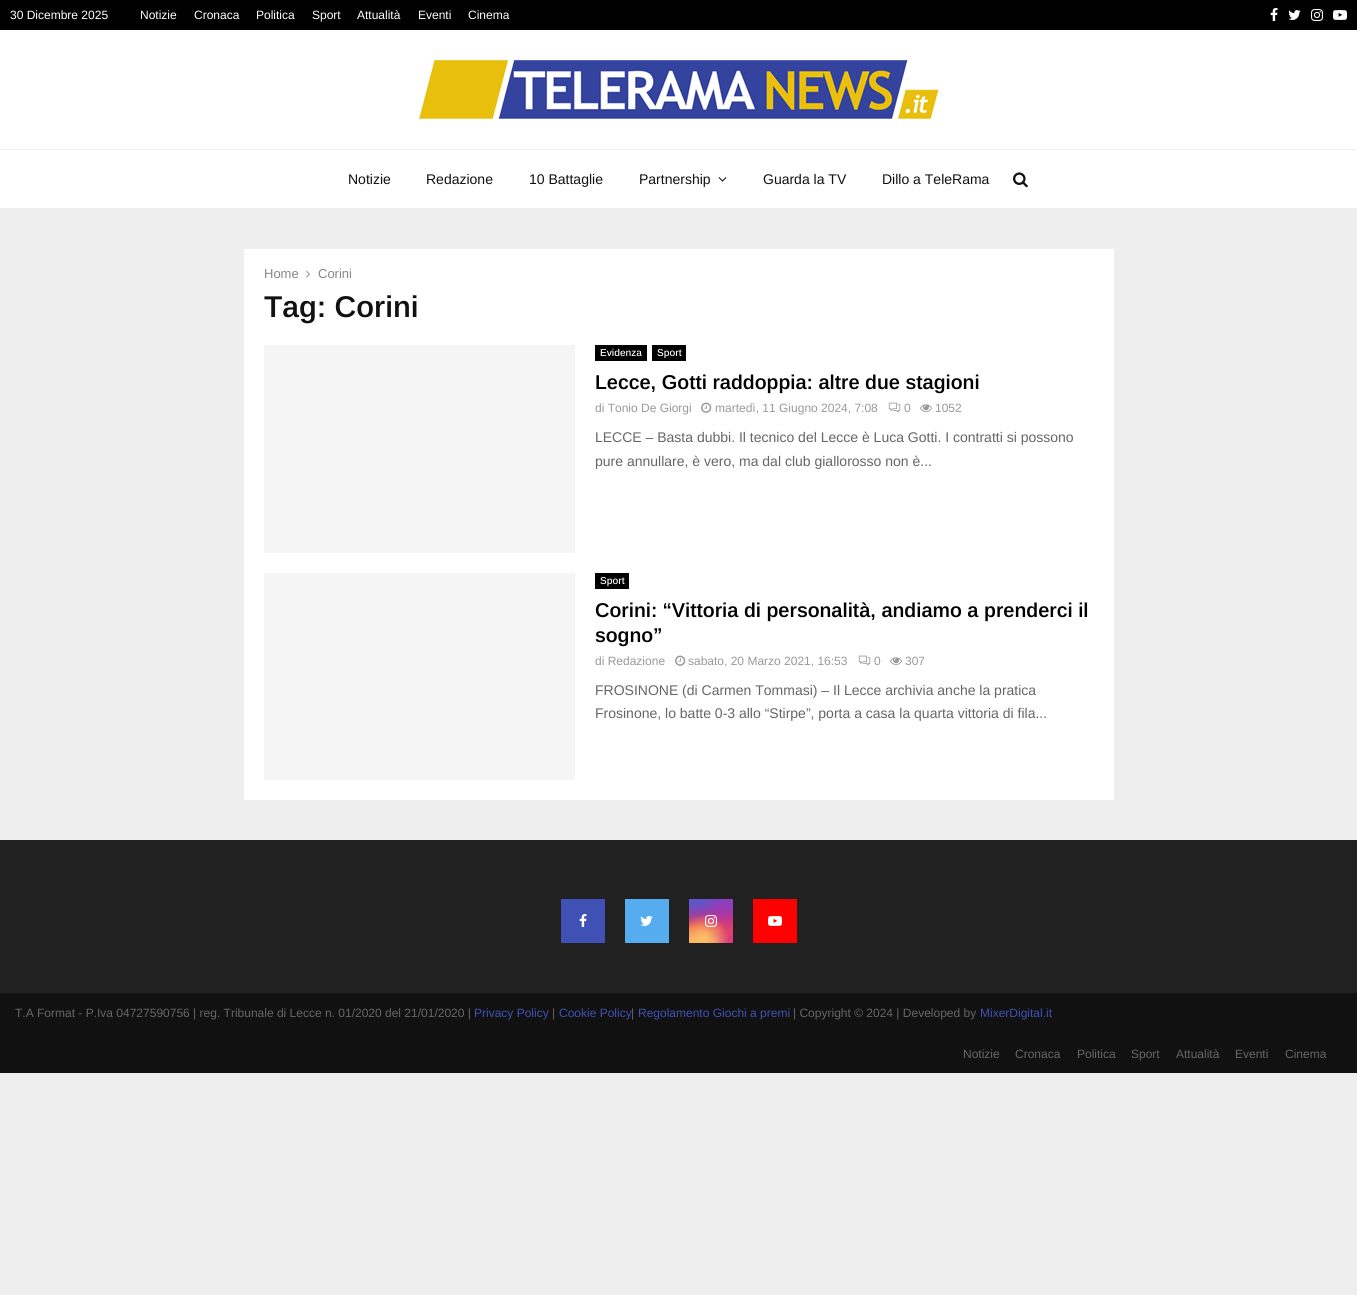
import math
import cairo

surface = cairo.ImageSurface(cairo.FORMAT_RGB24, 1357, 1295)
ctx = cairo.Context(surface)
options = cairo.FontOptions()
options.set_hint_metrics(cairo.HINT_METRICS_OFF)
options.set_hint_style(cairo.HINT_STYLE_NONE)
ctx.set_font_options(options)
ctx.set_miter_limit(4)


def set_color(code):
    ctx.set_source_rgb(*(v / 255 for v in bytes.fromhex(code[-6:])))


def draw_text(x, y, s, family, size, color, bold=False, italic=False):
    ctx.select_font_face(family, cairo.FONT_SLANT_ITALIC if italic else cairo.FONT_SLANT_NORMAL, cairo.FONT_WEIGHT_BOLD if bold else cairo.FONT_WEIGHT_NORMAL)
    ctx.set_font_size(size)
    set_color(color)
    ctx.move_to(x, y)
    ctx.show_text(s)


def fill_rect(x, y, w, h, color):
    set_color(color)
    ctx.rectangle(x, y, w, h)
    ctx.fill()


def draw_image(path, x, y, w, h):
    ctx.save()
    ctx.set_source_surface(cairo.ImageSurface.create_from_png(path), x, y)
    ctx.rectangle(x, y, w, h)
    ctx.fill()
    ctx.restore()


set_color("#eeeeee")
ctx.paint()
fill_rect(0, 0, 1357, 30, "#000000")
draw_text(10, 19, "30 Dicembre 2025", "Arimo", 12, "#ffffff")
draw_text(140, 19, "Notizie", "Arimo", 12, "#ffffff")
draw_text(194, 19, "Cronaca", "Arimo", 12, "#ffffff")
draw_text(256, 19, "Politica", "Arimo", 12, "#ffffff")
draw_text(312, 19, "Sport", "Arimo", 12, "#ffffff")
draw_text(357, 19, "Attualità", "Arimo", 12, "#ffffff")
draw_text(418, 19, "Eventi", "Arimo", 12, "#ffffff")
draw_text(468, 19, "Cinema", "Arimo", 12, "#ffffff")
draw_image("assets/img1.png", 1270, 8, 8, 13)
draw_image("assets/img2.png", 1288, 10, 13, 10)
draw_image("assets/img3.png", 1311, 9, 12, 12)
draw_image("assets/img4.png", 1333, 10, 14, 10)
fill_rect(0, 30, 1357, 119, "#ffffff")
draw_image("assets/img5.png", 419, 60, 520, 59)
fill_rect(0, 150, 1357, 58, "#ffffff")
draw_text(348, 184, "Notizie", "Arimo", 14, "#111111")
draw_text(426, 184, "Redazione", "Arimo", 14, "#111111")
draw_text(529, 184, "10 Battaglie", "Arimo", 14, "#111111")
draw_text(639, 184, "Partnership", "Arimo", 14, "#111111")
draw_image("assets/img6.png", 718, 177, 9, 5)
draw_text(763, 184, "Guarda la TV", "Arimo", 14, "#111111")
draw_text(882, 184, "Dillo a TeleRama", "Arimo", 14, "#111111")
draw_image("assets/img7.png", 1013, 172, 15, 16)
fill_rect(244, 249, 870, 551, "#ffffff")
draw_text(264, 278, "Home", "Arimo", 13, "#888888")
draw_image("assets/img8.png", 306, 270, 4, 8)
draw_text(318, 278, "Corini", "Arimo", 13, "#888888")
draw_text(264, 317, "Tag: Corini", "Arimo SemiBold", 30, "#111111")
fill_rect(264, 345, 311, 208, "#f5f5f5")
fill_rect(595, 345, 52, 16, "#000000")
draw_text(600, 356, "Evidenza", "Arimo Medium", 10, "#ffffff")
fill_rect(652, 345, 34, 16, "#000000")
draw_text(657, 356, "Sport", "Arimo Medium", 10, "#ffffff")
draw_text(595, 389, "Lecce, Gotti raddoppia: altre due stagioni", "Arimo SemiBold", 20, "#000000")
draw_text(595, 412, "di Tonio De Giorgi", "Arimo", 12, "#999999")
draw_image("assets/img9.png", 701, 402, 11, 11)
draw_text(715, 412, "martedì, 11 Giugno 2024, 7:08", "Arimo", 12, "#999999")
draw_image("assets/img10.png", 888, 402, 13, 11)
draw_text(904, 412, "0", "Arimo", 12, "#999999")
draw_image("assets/img11.png", 920, 404, 12, 8)
draw_text(935, 412, "1052", "Arimo", 12, "#999999")
draw_text(595, 442, "LECCE – Basta dubbi. Il tecnico del Lecce è Luca Gotti. I contratti si possono", "Arimo", 14, "#666666")
draw_text(595, 466, "pure annullare, è vero, ma dal club giallorosso non è...", "Arimo", 14, "#666666")
fill_rect(264, 573, 311, 207, "#f5f5f5")
fill_rect(595, 573, 34, 16, "#000000")
draw_text(600, 584, "Sport", "Arimo Medium", 10, "#ffffff")
draw_text(595, 617, "Corini: “Vittoria di personalità, andiamo a prenderci il", "Arimo SemiBold", 20, "#000000")
draw_text(595, 642, "sogno”", "Arimo SemiBold", 20, "#000000")
draw_text(595, 665, "di Redazione", "Arimo", 12, "#999999")
draw_image("assets/img9.png", 675, 655, 11, 11)
draw_text(688, 665, "sabato, 20 Marzo 2021, 16:53", "Arimo", 12, "#999999")
draw_image("assets/img10.png", 858, 655, 13, 11)
draw_text(874, 665, "0", "Arimo", 12, "#999999")
draw_image("assets/img11.png", 890, 657, 12, 8)
draw_text(905, 665, "307", "Arimo", 12, "#999999")
draw_text(595, 695, "FROSINONE (di Carmen Tommasi) – Il Lecce archivia anche la pratica", "Arimo", 14, "#666666")
draw_text(595, 718, "Frosinone, lo batte 0-3 allo “Stirpe”, porta a casa la quarta vittoria di fila...", "Arimo", 14, "#666666")
fill_rect(0, 840, 1357, 153, "#212121")
fill_rect(561, 899, 44, 44, "#3f51b5")
draw_image("assets/img12.png", 579, 914, 8, 13)
fill_rect(625, 899, 44, 44, "#55acee")
draw_image("assets/img13.png", 640, 916, 13, 10)
gradient = cairo.LinearGradient(711, 899, 711, 943)
gradient.add_color_stop_rgba(0, 0.396, 0.349, 0.792, 1)
gradient.add_color_stop_rgba(0.3, 0.737, 0.192, 0.561, 1)
gradient.add_color_stop_rgba(0.5, 0.89, 0.247, 0.373, 1)
gradient.add_color_stop_rgba(0.7, 0.969, 0.463, 0.22, 1)
gradient.add_color_stop_rgba(1, 0.996, 0.776, 0.427, 1)
ctx.set_source(gradient)
ctx.rectangle(689, 899, 44, 44)
ctx.fill()
gradient = cairo.RadialGradient(733, 943, 0, 733, 943, 62)
gradient.add_color_stop_rgba(0, 0.851, 0.192, 0.478, 1)
gradient.add_color_stop_rgba(1, 0.851, 0.192, 0.478, 0)
ctx.set_source(gradient)
ctx.rectangle(689, 899, 44, 44)
ctx.fill()
gradient = cairo.RadialGradient(0, 0, 0, 0, 0, 1)
gradient.set_matrix(cairo.Matrix(1 / 37, 0, 0, 1 / 75, -1 * 715 / 37, -1 * 890 / 75))
gradient.add_color_stop_rgba(0, 0.537, 0.239, 0.761, 1)
gradient.add_color_stop_rgba(0.5, 0.537, 0.239, 0.761, 0)
ctx.set_source(gradient)
ctx.rectangle(700, 899, 31, 28)
ctx.fill()
gradient = cairo.RadialGradient(733, 899, 0, 733, 899, 62)
gradient.add_color_stop_rgba(0, 0.537, 0.239, 0.761, 1)
gradient.add_color_stop_rgba(0.5, 0.537, 0.239, 0.761, 0)
ctx.set_source(gradient)
ctx.rectangle(706, 899, 27, 30)
ctx.fill()
gradient = cairo.RadialGradient(0, 0, 0, 0, 0, 1)
gradient.set_matrix(cairo.Matrix(1 / 50, 0, 0, 1 / 93, -1 * 698 / 50, -1 * 877 / 93))
gradient.add_color_stop_rgba(0, 0.322, 0.345, 0.812, 1)
gradient.add_color_stop_rgba(0.5, 0.322, 0.345, 0.812, 0)
ctx.set_source(gradient)
ctx.rectangle(689, 899, 29, 23)
ctx.fill()
gradient = cairo.RadialGradient(0, 0, 0, 0, 0, 1)
gradient.set_matrix(cairo.Matrix(1 / 62, 0, 0, 1 / 78, -1 * 689 / 62, -1 * 888 / 78))
gradient.add_color_stop_rgba(0, 0.322, 0.345, 0.812, 1)
gradient.add_color_stop_rgba(0.5, 0.322, 0.345, 0.812, 0)
ctx.set_source(gradient)
ctx.rectangle(689, 899, 28, 27)
ctx.fill()
gradient = cairo.RadialGradient(689, 961, 0, 689, 961, 76)
gradient.add_color_stop_rgba(0, 0.996, 0.773, 0.392, 1)
gradient.add_color_stop_rgba(0.5, 0.996, 0.773, 0.392, 0)
ctx.set_source(gradient)
ctx.rectangle(689, 924, 32, 19)
ctx.fill()
gradient = cairo.RadialGradient(704, 939, 0, 704, 939, 49)
gradient.add_color_stop_rgba(0, 0.996, 0.773, 0.392, 1)
gradient.add_color_stop_rgba(0.5, 0.996, 0.773, 0.392, 0)
ctx.set_source(gradient)
ctx.rectangle(689, 915, 39, 28)
ctx.fill()
draw_image("assets/img14.png", 705, 915, 12, 12)
fill_rect(753, 899, 44, 44, "#ff0000")
draw_image("assets/img15.png", 768, 916, 14, 10)
fill_rect(0, 993, 1357, 80, "#111111")
draw_text(15, 1017, "T.A Format - P.Iva 04727590756 | reg. Tribunale di Lecce n. 01/2020 del 21/01/2020 |", "Arimo", 12, "#666666")
draw_text(474, 1017, "Privacy Policy", "Arimo", 12, "#3f51b5")
draw_text(552, 1017, "|", "Arimo", 12, "#666666")
draw_text(559, 1017, "Cookie Policy", "Arimo", 12, "#3f51b5")
draw_text(631, 1017, "|", "Arimo", 12, "#666666")
draw_text(638, 1017, "Regolamento Giochi a premi", "Arimo", 12, "#3f51b5")
draw_text(793, 1017, "| Copyright © 2024 | Developed by", "Arimo", 12, "#666666")
draw_text(980, 1017, "MixerDigital.it", "Arimo", 12, "#3f51b5")
draw_text(963, 1058, "Notizie", "Arimo", 12, "#666666")
draw_text(1015, 1058, "Cronaca", "Arimo", 12, "#666666")
draw_text(1077, 1058, "Politica", "Arimo", 12, "#666666")
draw_text(1131, 1058, "Sport", "Arimo", 12, "#666666")
draw_text(1176, 1058, "Attualità", "Arimo", 12, "#666666")
draw_text(1235, 1058, "Eventi", "Arimo", 12, "#666666")
draw_text(1285, 1058, "Cinema", "Arimo", 12, "#666666")
surface.write_to_png("output.png")
